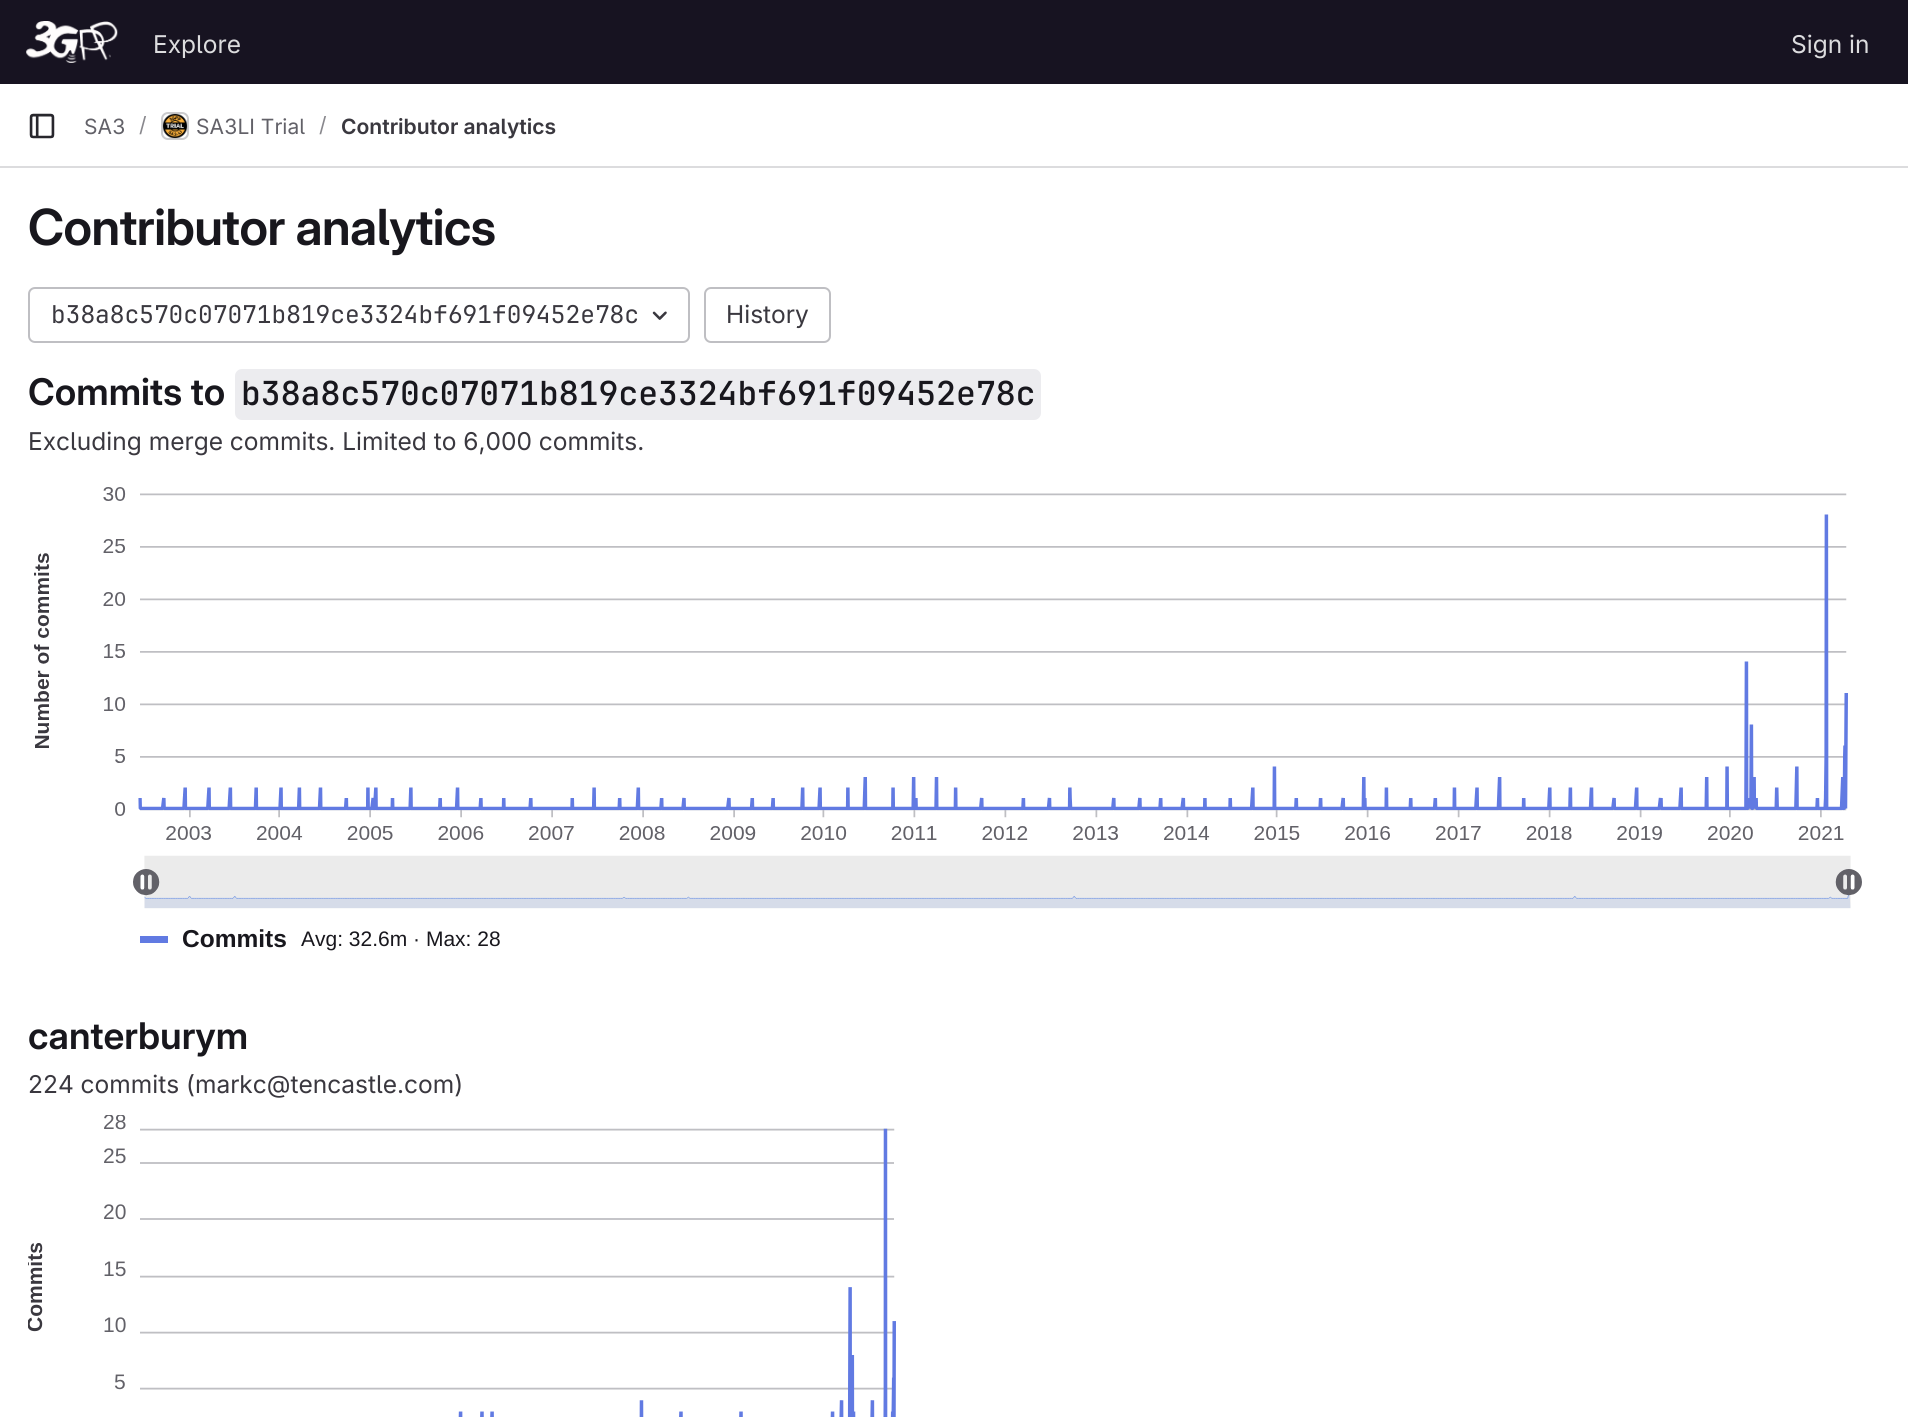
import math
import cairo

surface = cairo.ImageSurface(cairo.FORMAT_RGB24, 1908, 1417)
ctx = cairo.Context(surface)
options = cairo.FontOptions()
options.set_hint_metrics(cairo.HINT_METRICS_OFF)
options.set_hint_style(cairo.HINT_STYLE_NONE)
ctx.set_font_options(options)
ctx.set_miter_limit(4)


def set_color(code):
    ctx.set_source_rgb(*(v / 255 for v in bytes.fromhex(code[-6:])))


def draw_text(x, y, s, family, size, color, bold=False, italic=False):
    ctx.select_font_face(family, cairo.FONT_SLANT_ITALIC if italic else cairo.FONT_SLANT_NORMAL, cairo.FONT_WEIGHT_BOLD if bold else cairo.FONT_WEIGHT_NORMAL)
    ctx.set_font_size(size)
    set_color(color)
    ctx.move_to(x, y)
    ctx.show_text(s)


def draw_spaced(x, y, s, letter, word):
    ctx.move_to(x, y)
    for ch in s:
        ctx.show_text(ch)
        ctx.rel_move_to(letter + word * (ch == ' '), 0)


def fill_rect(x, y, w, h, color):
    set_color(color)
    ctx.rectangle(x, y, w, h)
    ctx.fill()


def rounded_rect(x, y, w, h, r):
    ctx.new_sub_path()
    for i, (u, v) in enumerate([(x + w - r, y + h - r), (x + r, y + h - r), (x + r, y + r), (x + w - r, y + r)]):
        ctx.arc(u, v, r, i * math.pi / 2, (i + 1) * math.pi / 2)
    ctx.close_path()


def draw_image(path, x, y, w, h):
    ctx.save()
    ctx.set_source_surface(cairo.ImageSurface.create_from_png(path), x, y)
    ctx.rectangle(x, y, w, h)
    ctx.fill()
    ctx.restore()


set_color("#ffffff")
ctx.paint()
fill_rect(0, 0, 1908, 84, "#171321")
draw_image("assets/img1.png", 26, 21, 92, 42)
draw_text(153, 53, "Explore", "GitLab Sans", 24.5, "#dcdcde")
draw_text(1791, 53, "Sign in", "GitLab Sans", 24.5, "#dcdcde")
fill_rect(0, 166, 1908, 2, "#dcdcde")
draw_image("assets/img2.png", 29, 113, 26, 26)
draw_text(84, 134, "SA3", "GitLab Sans", 21, "#626168")
draw_text(139, 132, "/", "GitLab Sans", 21, "#89888d")
rounded_rect(162, 113, 26, 26, 6)
set_color("#dcdcde")
ctx.stroke()
draw_image("assets/img3.png", 162, 113, 26, 26)
rounded_rect(162, 113, 26, 26, 6)
ctx.set_source_rgba(0.02, 0.02, 0.024, 0.08)
ctx.stroke()
draw_text(196, 134, "SA3LI Trial", "GitLab Sans", 21, "#626168")
draw_text(319, 132, "/", "GitLab Sans", 21, "#89888d")
draw_text(341, 134, "Contributor analytics", "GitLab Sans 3 SemiBold", 21, "#3a383f")
ctx.select_font_face("GitLab Sans SemiBold")
ctx.set_font_size(49.75)
set_color("#18171d")
draw_spaced(28, 245, "Contributor analytics", -0.5, 0)
rounded_rect(29, 288, 660, 54, 6)
set_color("#bfbfc3")
ctx.stroke()
draw_text(51, 323, "b38a8c570c07071b819ce3324bf691f09452e78c", "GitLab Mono", 24.5, "#3a383f")
draw_image("assets/img4.png", 652, 311, 15, 9)
rounded_rect(705, 288, 125, 54, 6)
set_color("#bfbfc3")
ctx.stroke()
draw_text(726, 323, "History", "GitLab Sans", 24.5, "#3a383f")
draw_text(28, 405, "Commits to", "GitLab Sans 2 SemiBold", 36.75, "#18171d")
set_color("#ececef")
rounded_rect(235, 369, 806, 51, 7)
ctx.fill()
draw_text(241, 405, "b38a8c570c07071b819ce3324bf691f09452e78c", "GitLab Mono SemiBold", 33.1, "#18171d")
draw_text(28, 450, "Excluding merge commits. Limited to 6,000 commits.", "GitLab Sans", 24.5, "#3a383f")
draw_image("assets/img5.png", 34, 487, 1828, 422)
fill_rect(140, 936, 28, 7, "#617ae2")
draw_text(182, 947, "Commits", "Liberation Sans", 24.5, "#18171d", bold=True)
draw_text(301, 946, "Avg: 32.6m · Max: 28", "Liberation Sans", 21, "#18171d")
draw_text(28, 1049, "canterburym", "GitLab Sans 2 SemiBold", 36.75, "#18171d")
draw_text(28, 1093, "224 commits (markc@tencastle.com)", "GitLab Sans", 24.5, "#3a383f")
draw_image("assets/img6.png", 140, 1128, 756, 289)
ctx.save()
ctx.rectangle(28, 1115, 901, 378)
ctx.clip()
draw_text(103, 1129, "28", "Liberation Sans", 21, "#626168")
ctx.restore()
draw_text(103, 1163, "25", "Liberation Sans", 21, "#626168")
draw_text(103, 1219, "20", "Liberation Sans", 21, "#626168")
ctx.save()
ctx.rectangle(28, 1115, 901, 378)
ctx.clip()
ctx.save()
ctx.translate(42, 1332)
ctx.rotate(-90 * math.pi / 180)
draw_text(0, 0, "Commits", "Liberation Sans", 21, "#3a383f", bold=True)
ctx.restore()
ctx.restore()
draw_text(103, 1276, "15", "Liberation Sans", 21, "#626168")
draw_text(103, 1332, "10", "Liberation Sans", 21, "#626168")
draw_text(114, 1389, "5", "Liberation Sans", 21, "#626168")
surface.write_to_png("output.png")
